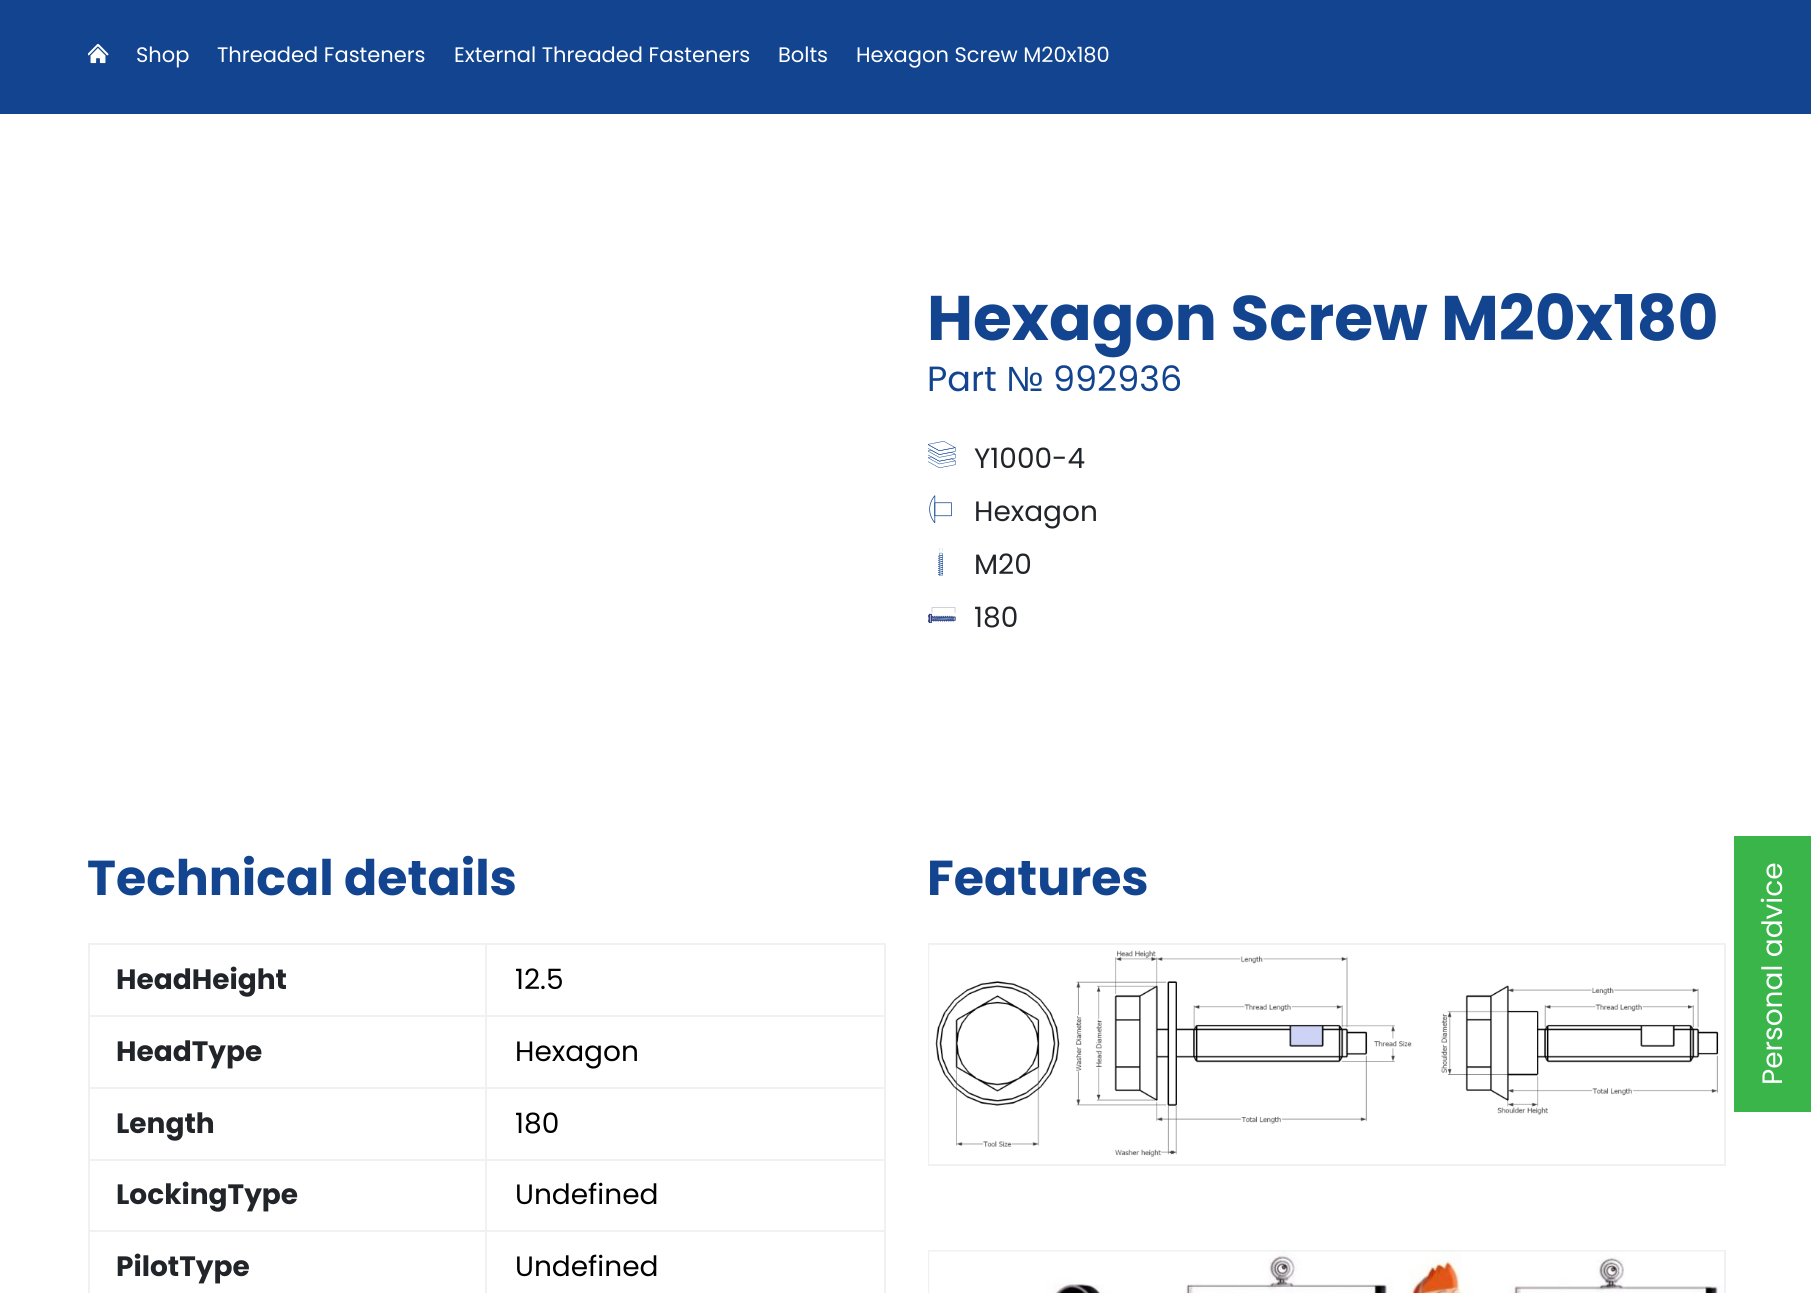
import math
import cairo

surface = cairo.ImageSurface(cairo.FORMAT_RGB24, 1811, 1293)
ctx = cairo.Context(surface)
options = cairo.FontOptions()
options.set_hint_metrics(cairo.HINT_METRICS_OFF)
options.set_hint_style(cairo.HINT_STYLE_NONE)
ctx.set_font_options(options)
ctx.set_miter_limit(4)


def set_color(code):
    ctx.set_source_rgb(*(v / 255 for v in bytes.fromhex(code[-6:])))


def draw_text(x, y, s, family, size, color, bold=False, italic=False):
    ctx.select_font_face(family, cairo.FONT_SLANT_ITALIC if italic else cairo.FONT_SLANT_NORMAL, cairo.FONT_WEIGHT_BOLD if bold else cairo.FONT_WEIGHT_NORMAL)
    ctx.set_font_size(size)
    set_color(color)
    ctx.move_to(x, y)
    ctx.show_text(s)


def fill_rect(x, y, w, h, color):
    set_color(color)
    ctx.rectangle(x, y, w, h)
    ctx.fill()


def draw_image(path, x, y, w, h):
    ctx.save()
    ctx.set_source_surface(cairo.ImageSurface.create_from_png(path), x, y)
    ctx.rectangle(x, y, w, h)
    ctx.fill()
    ctx.restore()


set_color("#ffffff")
ctx.paint()
fill_rect(0, 0, 1811, 114, "#124490")
draw_image("assets/img1.png", 88, 44, 21, 20)
draw_text(136, 62, "Shop", "Poppins", 21, "#ffffff")
draw_text(217, 62, "Threaded Fasteners", "Poppins", 21, "#ffffff")
draw_text(454, 62, "External Threaded Fasteners", "Poppins", 21, "#ffffff")
draw_text(778, 62, "Bolts", "Poppins", 21, "#ffffff")
draw_text(856, 62, "Hexagon Screw M20x180", "Poppins", 21, "#ffffff")
draw_text(927, 340, "Hexagon Screw M20x180", "Poppins", 63, "#124490", bold=True)
draw_text(927, 391, "Part", "Poppins", 35, "#124490")
draw_text(1006, 391, "№", "Liberation Sans", 35, "#124490")
draw_text(1053, 391, "992936", "Poppins", 35, "#124490")
draw_image("assets/img2.png", 928, 441, 28, 27)
draw_text(974, 468, "Y1000-4", "Poppins", 28, "#212529")
draw_image("assets/img3.png", 929, 495, 23, 28)
draw_text(974, 521, "Hexagon", "Poppins", 28, "#212529")
draw_image("assets/img4.png", 938, 548, 5, 28)
draw_text(974, 574, "M20", "Poppins", 28, "#212529")
draw_image("assets/img5.png", 928, 607, 28, 16)
draw_text(974, 627, "180", "Poppins", 28, "#212529")
draw_text(87, 895, "Technical details", "Poppins", 49, "#124490", bold=True)
fill_rect(485, 943, 401, 2, "#f1f1f1")
fill_rect(485, 1015, 401, 2, "#f1f1f1")
fill_rect(485, 1087, 401, 2, "#f1f1f1")
fill_rect(485, 1159, 401, 2, "#f1f1f1")
fill_rect(485, 1230, 401, 2, "#f1f1f1")
fill_rect(485, 1230, 2, 63, "#f1f1f1")
fill_rect(88, 1230, 399, 2, "#f1f1f1")
fill_rect(485, 1159, 2, 73, "#f1f1f1")
fill_rect(88, 1159, 399, 2, "#f1f1f1")
fill_rect(485, 1087, 2, 73, "#f1f1f1")
fill_rect(88, 1087, 399, 2, "#f1f1f1")
fill_rect(485, 1015, 2, 74, "#f1f1f1")
fill_rect(88, 1015, 399, 2, "#f1f1f1")
fill_rect(485, 943, 2, 74, "#f1f1f1")
fill_rect(88, 943, 399, 2, "#f1f1f1")
fill_rect(88, 1230, 2, 63, "#f1f1f1")
fill_rect(88, 1159, 2, 73, "#f1f1f1")
fill_rect(88, 1087, 2, 73, "#f1f1f1")
fill_rect(88, 1015, 2, 74, "#f1f1f1")
fill_rect(88, 943, 2, 74, "#f1f1f1")
draw_text(116, 989, "HeadHeight", "Poppins", 28, "#212529", bold=True)
fill_rect(884, 1230, 2, 63, "#f1f1f1")
fill_rect(884, 1159, 2, 73, "#f1f1f1")
fill_rect(884, 1087, 2, 73, "#f1f1f1")
fill_rect(884, 1015, 2, 74, "#f1f1f1")
fill_rect(884, 943, 2, 74, "#f1f1f1")
draw_text(515, 989, "12.5", "Poppins", 28, "#000000")
draw_text(116, 1061, "HeadType", "Poppins", 28, "#212529", bold=True)
draw_text(515, 1061, "Hexagon", "Poppins", 28, "#000000")
draw_text(116, 1133, "Length", "Poppins", 28, "#212529", bold=True)
draw_text(515, 1133, "180", "Poppins", 28, "#000000")
draw_text(116, 1204, "LockingType", "Poppins", 28, "#212529", bold=True)
draw_text(515, 1204, "Undefined", "Poppins", 28, "#000000")
draw_text(116, 1276, "PilotType", "Poppins", 28, "#212529", bold=True)
draw_text(515, 1276, "Undefined", "Poppins", 28, "#000000")
draw_text(927, 895, "Features", "Poppins", 49, "#124490", bold=True)
ctx.rectangle(929, 944, 796, 221)
set_color("#f1f1f1")
ctx.stroke()
draw_image("assets/img6.png", 929, 945, 790, 219)
ctx.rectangle(929, 1251, 796, 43)
ctx.stroke()
draw_image("assets/img7.png", 929, 1251, 795, 42)
fill_rect(1734, 836, 77, 276, "#39b54a")
ctx.save()
ctx.translate(1782, 1085)
ctx.rotate(-90 * math.pi / 180)
draw_text(0, 0, "Personal advice", "Poppins", 28, "#ffffff")
ctx.restore()
surface.write_to_png("output.png")
